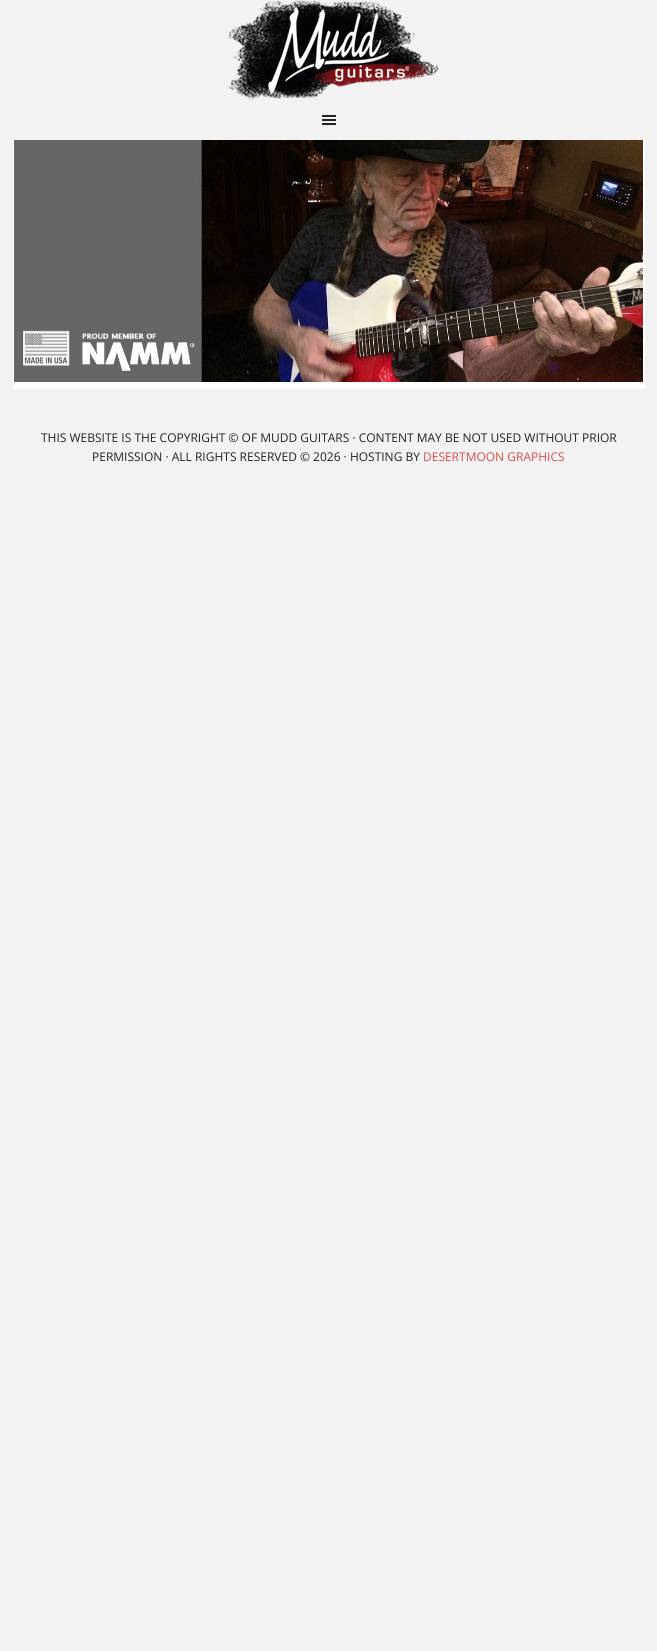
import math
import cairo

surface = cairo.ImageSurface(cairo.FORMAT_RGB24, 657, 1651)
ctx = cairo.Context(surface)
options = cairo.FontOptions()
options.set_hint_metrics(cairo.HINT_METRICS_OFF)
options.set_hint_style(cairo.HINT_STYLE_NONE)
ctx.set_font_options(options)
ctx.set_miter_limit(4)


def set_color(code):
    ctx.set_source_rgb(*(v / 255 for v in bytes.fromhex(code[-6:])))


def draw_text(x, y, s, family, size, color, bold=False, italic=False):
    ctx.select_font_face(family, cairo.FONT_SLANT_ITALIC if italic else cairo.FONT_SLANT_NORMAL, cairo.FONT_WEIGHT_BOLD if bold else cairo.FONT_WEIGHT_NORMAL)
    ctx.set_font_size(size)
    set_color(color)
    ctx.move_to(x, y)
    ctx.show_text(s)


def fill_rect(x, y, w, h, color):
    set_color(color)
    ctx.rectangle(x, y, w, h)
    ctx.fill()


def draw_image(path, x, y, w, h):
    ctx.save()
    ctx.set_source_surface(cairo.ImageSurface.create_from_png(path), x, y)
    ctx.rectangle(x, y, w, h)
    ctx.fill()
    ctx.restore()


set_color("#f2f2f2")
ctx.paint()
draw_image("assets/img1.png", 228, 0, 211, 100)
ctx.rectangle(13.5, 139.5, 631, 249)
set_color("#ffffff")
ctx.set_line_width(1)
ctx.stroke()
fill_rect(14, 139, 630, 1, "#f2f2f2")
draw_image("assets/img2.png", 322, 115, 14, 10)
fill_rect(14, 140, 630, 248, "#ffffff")
draw_image("assets/img3.png", 14, 140, 629, 242)
draw_text(41, 442, "THIS WEBSITE IS THE COPYRIGHT © OF MUDD GUITARS · CONTENT MAY BE NOT USED WITHOUT PRIOR", "Open Sans", 12, "#222222")
draw_text(92, 461, "PERMISSION · ALL RIGHTS RESERVED © 2026 · HOSTING BY", "Open Sans", 12, "#222222")
draw_text(423, 461, "DESERTMOON GRAPHICS", "Open Sans", 12, "#e04b4b")
surface.write_to_png("output.png")
